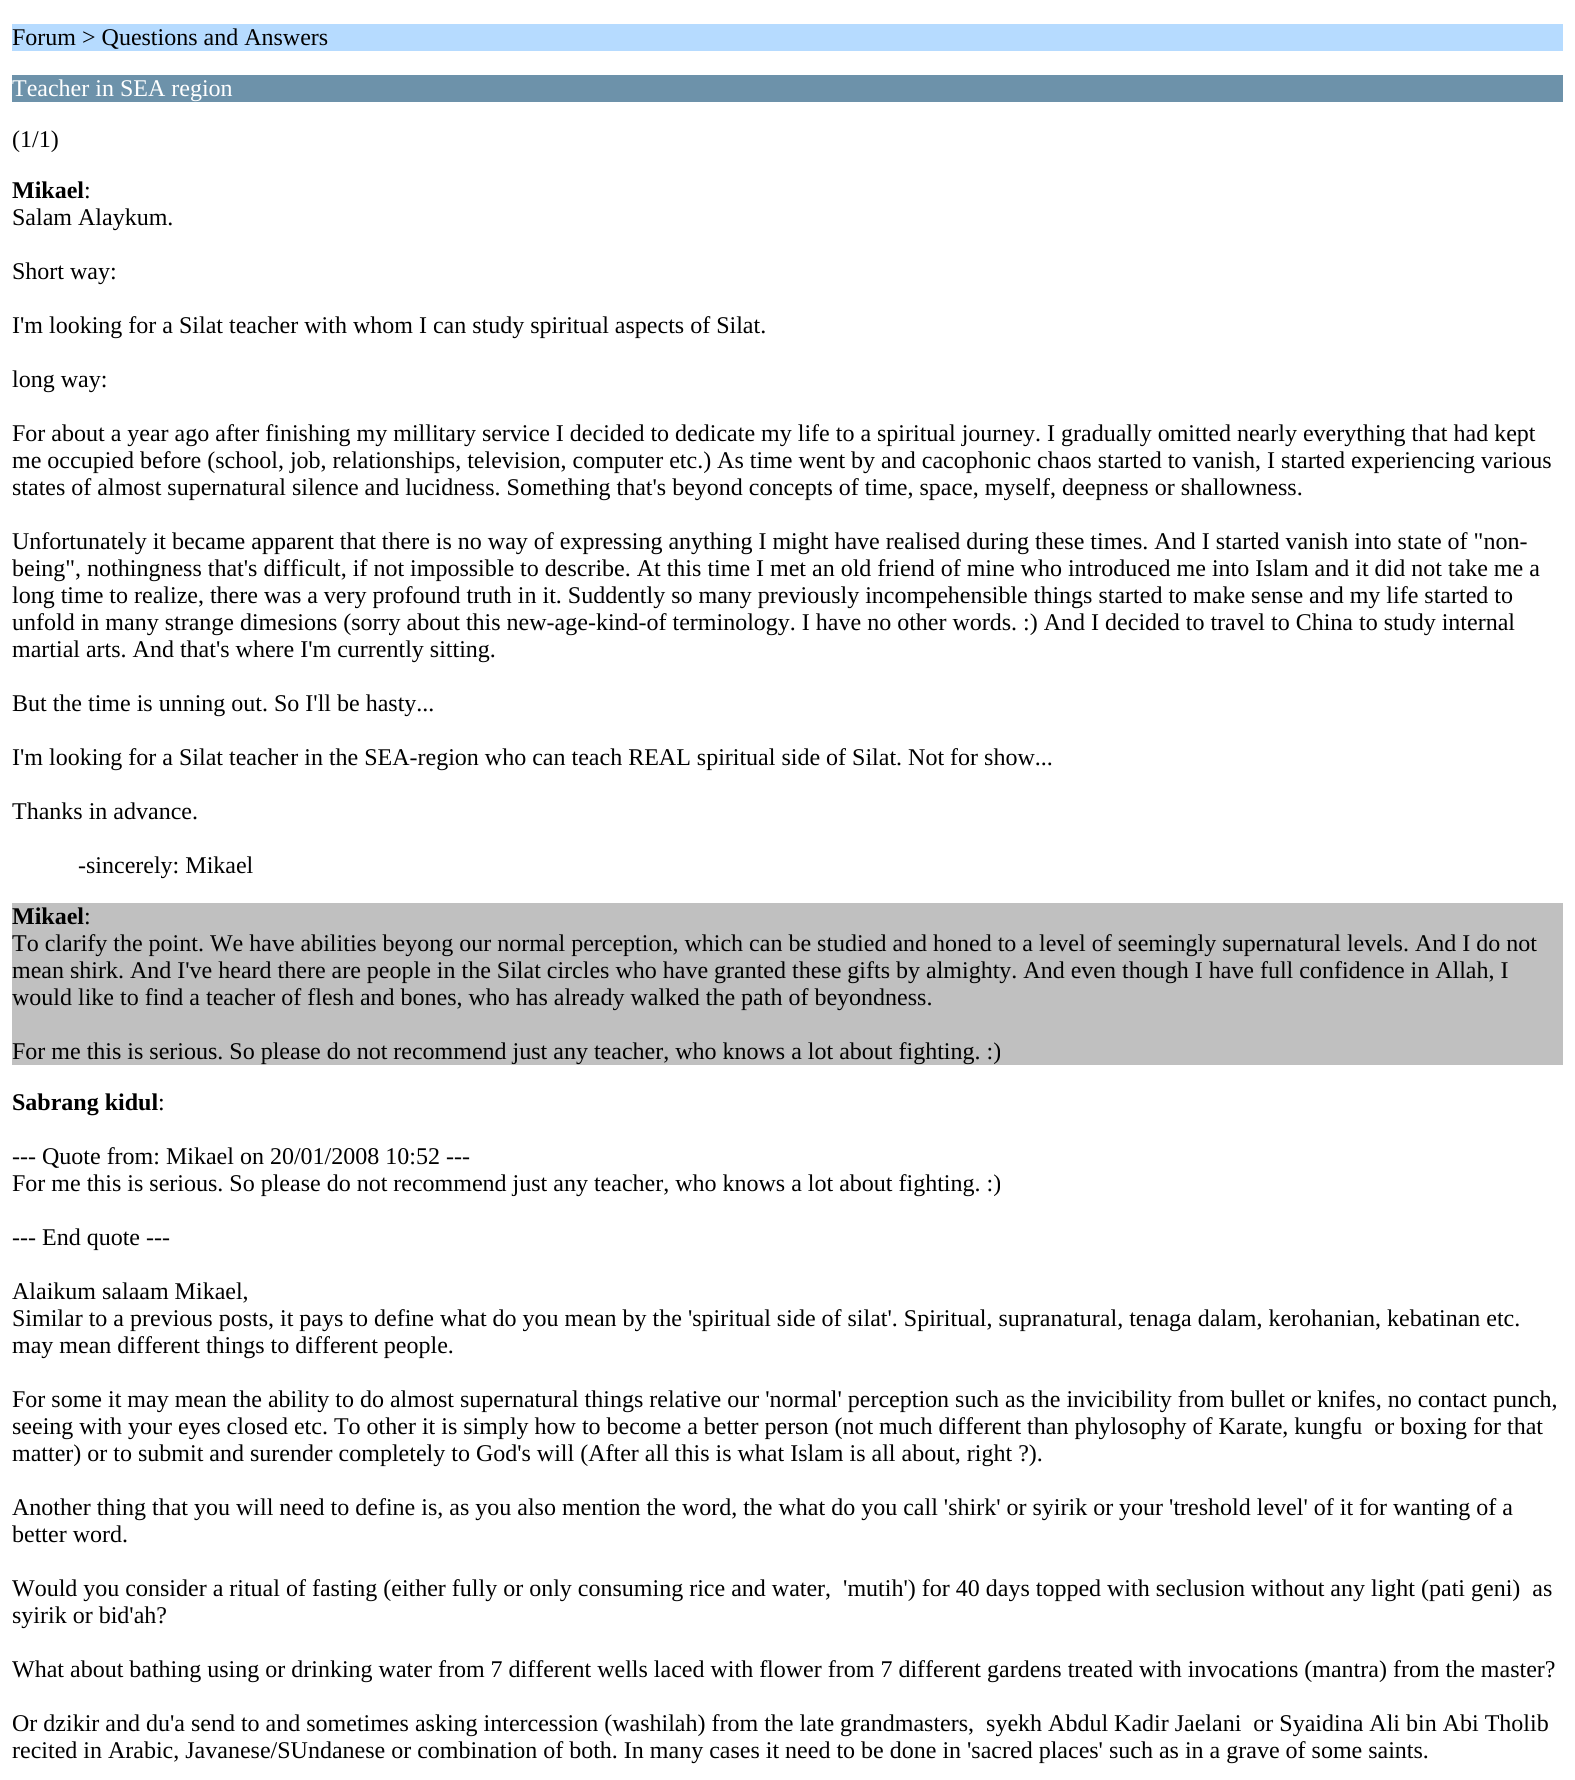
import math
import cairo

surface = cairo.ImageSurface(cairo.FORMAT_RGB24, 1575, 1780)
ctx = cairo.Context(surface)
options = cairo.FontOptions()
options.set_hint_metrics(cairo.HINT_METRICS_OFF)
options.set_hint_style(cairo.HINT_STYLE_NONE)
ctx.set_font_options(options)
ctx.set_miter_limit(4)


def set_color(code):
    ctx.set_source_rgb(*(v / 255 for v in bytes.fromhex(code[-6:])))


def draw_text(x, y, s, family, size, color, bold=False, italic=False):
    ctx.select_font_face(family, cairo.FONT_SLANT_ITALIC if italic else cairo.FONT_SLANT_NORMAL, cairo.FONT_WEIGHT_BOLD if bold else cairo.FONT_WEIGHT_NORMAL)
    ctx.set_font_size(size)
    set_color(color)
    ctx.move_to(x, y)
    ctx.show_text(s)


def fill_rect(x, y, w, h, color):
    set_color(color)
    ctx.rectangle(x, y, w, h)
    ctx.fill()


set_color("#ffffff")
ctx.paint()
fill_rect(12, 24, 1551, 27, "#b6dbff")
draw_text(12, 45, "Forum > Questions and Answers", "Liberation Serif", 24, "#000000")
fill_rect(12, 75, 1551, 27, "#6d92aa")
draw_text(12, 96, "Teacher in SEA region", "Liberation Serif", 24, "#ffffff")
draw_text(12, 147, "(1/1)", "Liberation Serif", 24, "#000000")
draw_text(12, 198, "Mikael", "Liberation Serif", 24, "#000000", bold=True)
draw_text(84, 198, ":", "Liberation Serif", 24, "#000000")
draw_text(12, 225, "Salam Alaykum.", "Liberation Serif", 24, "#000000")
draw_text(12, 279, "Short way:", "Liberation Serif", 24, "#000000")
draw_text(12, 333, "I'm looking for a Silat teacher with whom I can study spiritual aspects of Silat.", "Liberation Serif", 24, "#000000")
draw_text(12, 387, "long way:", "Liberation Serif", 24, "#000000")
draw_text(12, 441, "For about a year ago after finishing my millitary service I decided to dedicate my life to a spiritual journey. I gradually omitted nearly everything that had kept", "Liberation Serif", 24, "#000000")
draw_text(12, 468, "me occupied before (school, job, relationships, television, computer etc.) As time went by and cacophonic chaos started to vanish, I started experiencing various", "Liberation Serif", 24, "#000000")
draw_text(12, 495, "states of almost supernatural silence and lucidness. Something that's beyond concepts of time, space, myself, deepness or shallowness.", "Liberation Serif", 24, "#000000")
draw_text(12, 549, "Unfortunately it became apparent that there is no way of expressing anything I might have realised during these times. And I started vanish into state of \"non-", "Liberation Serif", 24, "#000000")
draw_text(12, 576, "being\", nothingness that's difficult, if not impossible to describe. At this time I met an old friend of mine who introduced me into Islam and it did not take me a", "Liberation Serif", 24, "#000000")
draw_text(12, 603, "long time to realize, there was a very profound truth in it. Suddently so many previously incompehensible things started to make sense and my life started to", "Liberation Serif", 24, "#000000")
draw_text(12, 630, "unfold in many strange dimesions (sorry about this new-age-kind-of terminology. I have no other words. :) And I decided to travel to China to study internal", "Liberation Serif", 24, "#000000")
draw_text(12, 657, "martial arts. And that's where I'm currently sitting.", "Liberation Serif", 24, "#000000")
draw_text(12, 711, "But the time is unning out. So I'll be hasty...", "Liberation Serif", 24, "#000000")
draw_text(12, 765, "I'm looking for a Silat teacher in the SEA-region who can teach REAL spiritual side of Silat. Not for show...", "Liberation Serif", 24, "#000000")
draw_text(12, 819, "Thanks in advance.", "Liberation Serif", 24, "#000000")
draw_text(78, 873, "-sincerely: Mikael", "Liberation Serif", 24, "#000000")
fill_rect(12, 903, 1551, 162, "#c0c0c0")
draw_text(12, 924, "Mikael", "Liberation Serif", 24, "#000000", bold=True)
draw_text(84, 924, ":", "Liberation Serif", 24, "#000000")
draw_text(12, 951, "To clarify the point. We have abilities beyong our normal perception, which can be studied and honed to a level of seemingly supernatural levels. And I do not", "Liberation Serif", 24, "#000000")
draw_text(12, 978, "mean shirk. And I've heard there are people in the Silat circles who have granted these gifts by almighty. And even though I have full confidence in Allah, I", "Liberation Serif", 24, "#000000")
draw_text(12, 1005, "would like to find a teacher of flesh and bones, who has already walked the path of beyondness.", "Liberation Serif", 24, "#000000")
draw_text(12, 1059, "For me this is serious. So please do not recommend just any teacher, who knows a lot about fighting. :)", "Liberation Serif", 24, "#000000")
draw_text(12, 1110, "Sabrang kidul", "Liberation Serif", 24, "#000000", bold=True)
draw_text(158, 1110, ":", "Liberation Serif", 24, "#000000")
draw_text(12, 1164, "--- Quote from: Mikael on 20/01/2008 10:52 ---", "Liberation Serif", 24, "#000000")
draw_text(12, 1191, "For me this is serious. So please do not recommend just any teacher, who knows a lot about fighting. :)", "Liberation Serif", 24, "#000000")
draw_text(12, 1245, "--- End quote ---", "Liberation Serif", 24, "#000000")
draw_text(12, 1299, "Alaikum salaam Mikael,", "Liberation Serif", 24, "#000000")
draw_text(12, 1326, "Similar to a previous posts, it pays to define what do you mean by the 'spiritual side of silat'. Spiritual, supranatural, tenaga dalam, kerohanian, kebatinan etc.", "Liberation Serif", 24, "#000000")
draw_text(12, 1353, "may mean different things to different people.", "Liberation Serif", 24, "#000000")
draw_text(12, 1407, "For some it may mean the ability to do almost supernatural things relative our 'normal' perception such as the invicibility from bullet or knifes, no contact punch,", "Liberation Serif", 24, "#000000")
draw_text(12, 1434, "seeing with your eyes closed etc. To other it is simply how to become a better person (not much different than phylosophy of Karate, kungfu  or boxing for that", "Liberation Serif", 24, "#000000")
draw_text(12, 1461, "matter) or to submit and surender completely to God's will (After all this is what Islam is all about, right ?).", "Liberation Serif", 24, "#000000")
draw_text(12, 1515, "Another thing that you will need to define is, as you also mention the word, the what do you call 'shirk' or syirik or your 'treshold level' of it for wanting of a", "Liberation Serif", 24, "#000000")
draw_text(12, 1542, "better word.", "Liberation Serif", 24, "#000000")
draw_text(12, 1596, "Would you consider a ritual of fasting (either fully or only consuming rice and water,  'mutih') for 40 days topped with seclusion without any light (pati geni)  as", "Liberation Serif", 24, "#000000")
draw_text(12, 1623, "syirik or bid'ah?", "Liberation Serif", 24, "#000000")
draw_text(12, 1677, "What about bathing using or drinking water from 7 different wells laced with flower from 7 different gardens treated with invocations (mantra) from the master?", "Liberation Serif", 24, "#000000")
draw_text(12, 1731, "Or dzikir and du'a send to and sometimes asking intercession (washilah) from the late grandmasters,  syekh Abdul Kadir Jaelani  or Syaidina Ali bin Abi Tholib", "Liberation Serif", 24, "#000000")
draw_text(12, 1758, "recited in Arabic, Javanese/SUndanese or combination of both. In many cases it need to be done in 'sacred places' such as in a grave of some saints.", "Liberation Serif", 24, "#000000")
surface.write_to_png("output.png")
